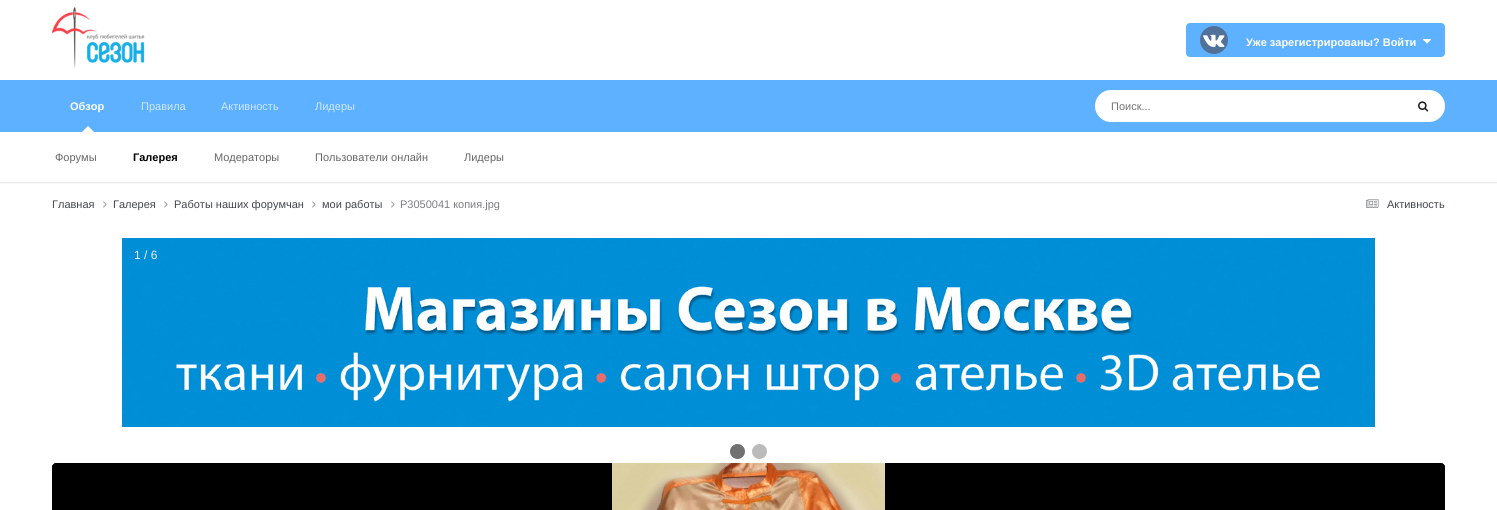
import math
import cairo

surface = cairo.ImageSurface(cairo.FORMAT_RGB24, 1497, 510)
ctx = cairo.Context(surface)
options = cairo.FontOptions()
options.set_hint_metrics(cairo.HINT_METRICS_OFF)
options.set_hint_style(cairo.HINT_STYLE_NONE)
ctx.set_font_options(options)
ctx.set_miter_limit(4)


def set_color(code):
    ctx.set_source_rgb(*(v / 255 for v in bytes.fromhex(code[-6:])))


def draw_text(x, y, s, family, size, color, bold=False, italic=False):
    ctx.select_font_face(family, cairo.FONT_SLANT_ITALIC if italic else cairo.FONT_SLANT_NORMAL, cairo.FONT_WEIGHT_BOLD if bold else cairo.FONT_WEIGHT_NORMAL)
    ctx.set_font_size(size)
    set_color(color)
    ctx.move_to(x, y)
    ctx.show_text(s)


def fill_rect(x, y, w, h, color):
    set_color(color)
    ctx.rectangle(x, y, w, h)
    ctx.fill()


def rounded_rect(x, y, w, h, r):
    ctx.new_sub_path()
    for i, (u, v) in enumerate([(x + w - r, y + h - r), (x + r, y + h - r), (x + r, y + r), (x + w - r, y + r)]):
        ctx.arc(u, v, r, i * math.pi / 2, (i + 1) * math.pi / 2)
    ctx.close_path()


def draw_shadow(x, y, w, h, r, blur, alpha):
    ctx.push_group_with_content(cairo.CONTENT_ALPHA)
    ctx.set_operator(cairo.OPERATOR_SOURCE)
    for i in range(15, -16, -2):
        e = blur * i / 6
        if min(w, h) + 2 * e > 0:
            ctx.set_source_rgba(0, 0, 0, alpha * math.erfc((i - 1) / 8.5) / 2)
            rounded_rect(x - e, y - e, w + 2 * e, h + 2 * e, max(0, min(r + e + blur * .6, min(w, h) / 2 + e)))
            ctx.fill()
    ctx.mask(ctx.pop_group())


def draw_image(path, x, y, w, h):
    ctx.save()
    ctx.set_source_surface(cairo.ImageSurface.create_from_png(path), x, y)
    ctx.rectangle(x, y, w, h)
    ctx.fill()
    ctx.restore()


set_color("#ffffff")
ctx.paint()
draw_image("assets/img1.png", 52, 7, 93, 61)
set_color("#5eb1ff")
rounded_rect(1186, 23, 259, 34, 4)
ctx.fill()
set_color("#507299")
ctx.arc(1214, 40, 14, 0, 2 * math.pi)
ctx.fill()
draw_image("assets/img2.png", 1203, 34, 22, 13)
draw_text(1246, 46, "Уже зарегистрированы? Войти", "Liberation Sans", 11, "#ffffff", bold=True)
draw_image("assets/img3.png", 1423, 39, 8, 5)
fill_rect(0, 80, 1497, 52, "#5eb1ff")
draw_text(70, 110, "Обзор", "Liberation Sans", 11, "#ffffff", bold=True)
ctx.save()
ctx.rectangle(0, 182, 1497, 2)
ctx.clip()
set_color("#000000")
draw_shadow(0, 133, 1497, 50, 0, 1, 0.1)
ctx.restore()
ctx.new_path()
ctx.move_to(94, 132)
ctx.line_to(82, 132)
ctx.line_to(88, 126)
ctx.close_path()
ctx.fill()
draw_text(55, 161, "Форумы", "Liberation Sans", 11, "#666666")
draw_text(133, 161, "Галерея", "Liberation Sans", 11, "#000000", bold=True)
draw_text(214, 161, "Модераторы", "Liberation Sans", 11, "#666666")
draw_text(315, 161, "Пользователи онлайн", "Liberation Sans", 11, "#666666")
draw_text(464, 161, "Лидеры", "Liberation Sans", 11, "#666666")
draw_text(141, 110, "Правила", "Liberation Sans", 11, "#cfe8ff")
draw_text(221, 110, "Активность", "Liberation Sans", 11, "#cfe8ff")
draw_text(315, 110, "Лидеры", "Liberation Sans", 11, "#cfe8ff")
set_color("#ffffff")
rounded_rect(1095, 90, 350, 32, 16)
ctx.fill()
draw_text(1111, 110, "Поиск...", "Liberation Sans", 11, "#757575")
draw_image("assets/img4.png", 1418, 101, 11, 11)
draw_text(52, 208, "Главная", "Liberation Sans", 11, "#42464c")
draw_image("assets/img5.png", 103, 201, 4, 7)
draw_text(113, 208, "Галерея", "Liberation Sans", 11, "#42464c")
draw_image("assets/img5.png", 164, 201, 4, 7)
draw_text(174, 208, "Работы наших форумчан", "Liberation Sans", 11, "#42464c")
draw_image("assets/img5.png", 312, 201, 4, 7)
draw_text(322, 208, "мои работы", "Liberation Sans", 11, "#42464c")
draw_image("assets/img5.png", 391, 201, 4, 7)
draw_text(400, 208, "P3050041 копия.jpg", "Liberation Sans", 11, "#7b7e82")
draw_image("assets/img6.png", 1366, 199, 13, 9)
draw_text(1387, 208, "Активность", "Liberation Sans", 11, "#42464c")
draw_image("assets/img7.png", 122, 238, 1253, 189)
draw_text(134, 259, "1 / 6", "Liberation Sans", 12, "#f2f2f2")
set_color("#717171")
ctx.new_path()
ctx.arc(737.5, 451.5, 7.5, 0, 2 * math.pi)
ctx.fill()
set_color("#bbbbbb")
ctx.arc(759.5, 451.5, 7.5, 0, 2 * math.pi)
ctx.fill()
set_color("#000000")
ctx.new_path()
ctx.move_to(56, 463)
ctx.line_to(1441, 463)
ctx.curve_to(1443, 463, 1445, 465, 1445, 467)
ctx.line_to(1445, 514)
ctx.line_to(52, 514)
ctx.line_to(52, 467)
ctx.curve_to(52, 465, 54, 463, 56, 463)
ctx.close_path()
ctx.fill()
ctx.set_source_rgba(0, 0, 0, 0.6)
ctx.new_path()
ctx.move_to(56, 463)
ctx.line_to(1441, 463)
ctx.curve_to(1443, 463, 1445, 465, 1445, 467)
ctx.line_to(1445, 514)
ctx.line_to(52, 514)
ctx.line_to(52, 467)
ctx.curve_to(52, 465, 54, 463, 56, 463)
ctx.close_path()
ctx.fill()
draw_image("assets/img8.png", 612, 463, 273, 47)
surface.write_to_png("output.png")
